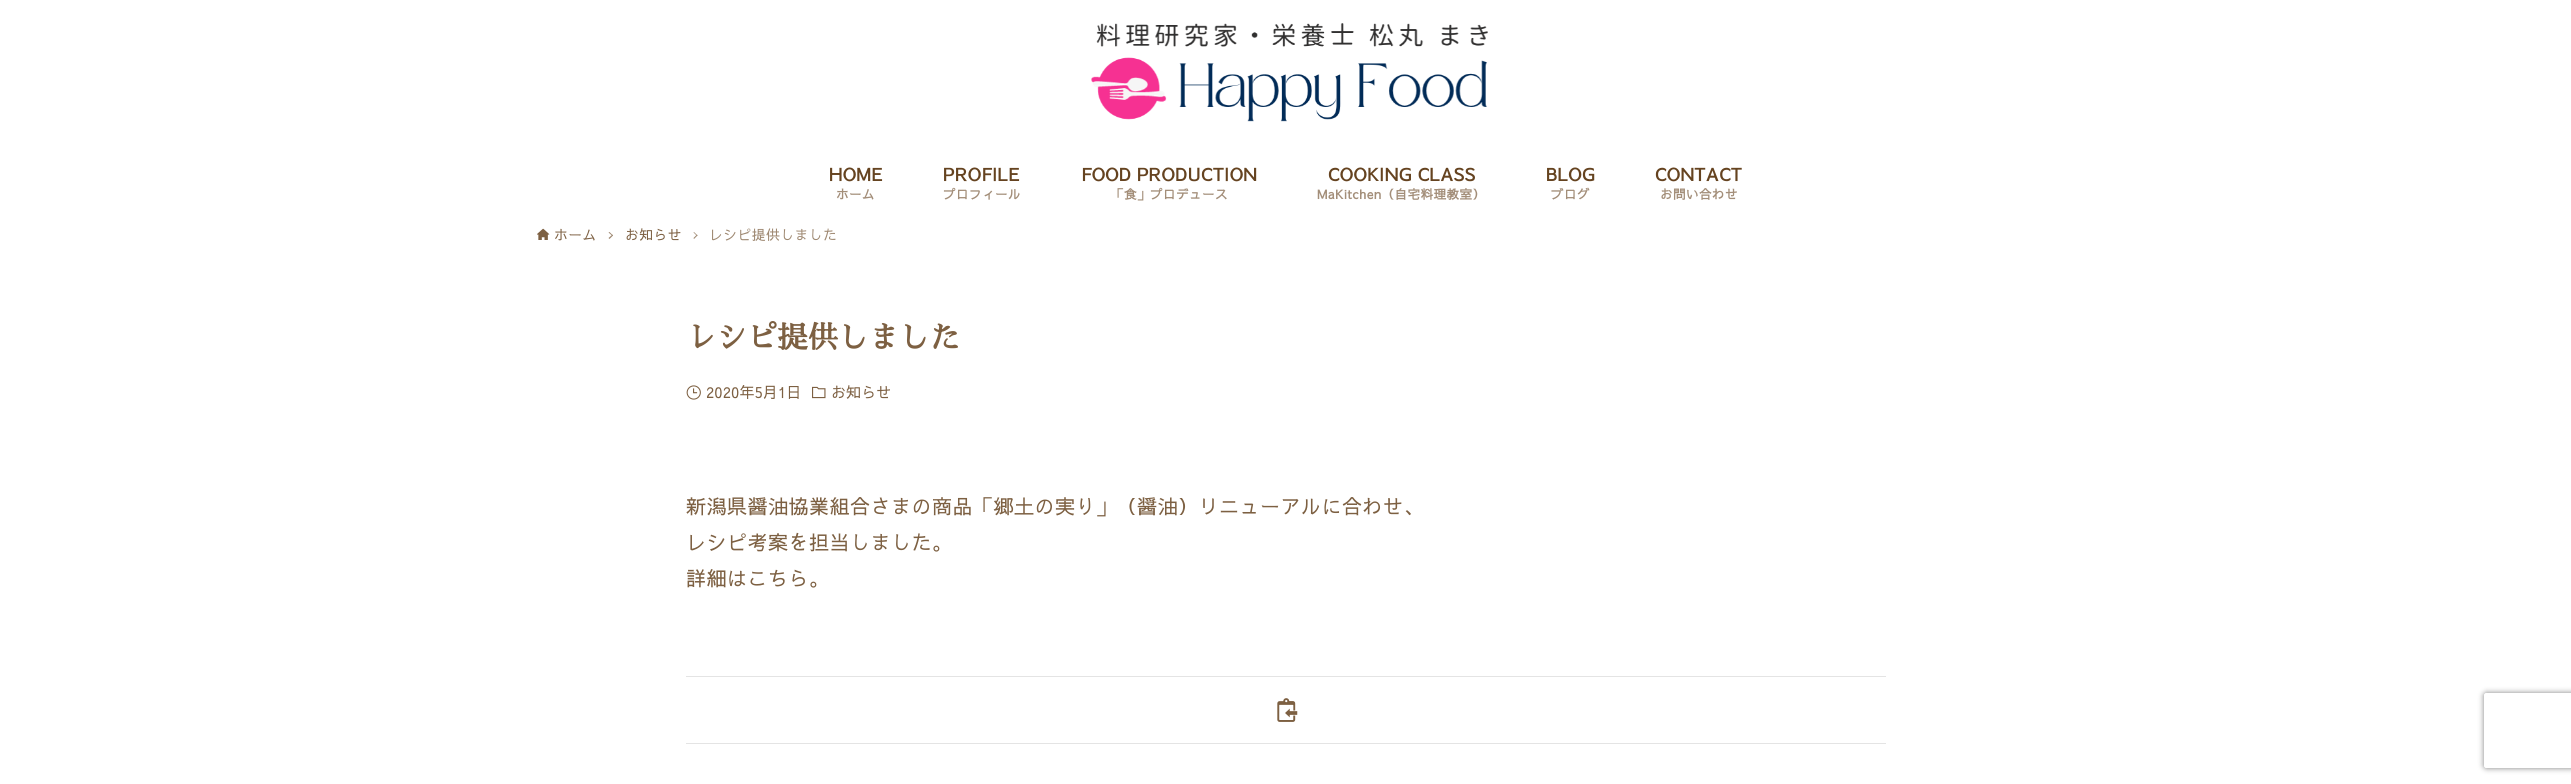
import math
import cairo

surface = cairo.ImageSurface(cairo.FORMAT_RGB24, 2571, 784)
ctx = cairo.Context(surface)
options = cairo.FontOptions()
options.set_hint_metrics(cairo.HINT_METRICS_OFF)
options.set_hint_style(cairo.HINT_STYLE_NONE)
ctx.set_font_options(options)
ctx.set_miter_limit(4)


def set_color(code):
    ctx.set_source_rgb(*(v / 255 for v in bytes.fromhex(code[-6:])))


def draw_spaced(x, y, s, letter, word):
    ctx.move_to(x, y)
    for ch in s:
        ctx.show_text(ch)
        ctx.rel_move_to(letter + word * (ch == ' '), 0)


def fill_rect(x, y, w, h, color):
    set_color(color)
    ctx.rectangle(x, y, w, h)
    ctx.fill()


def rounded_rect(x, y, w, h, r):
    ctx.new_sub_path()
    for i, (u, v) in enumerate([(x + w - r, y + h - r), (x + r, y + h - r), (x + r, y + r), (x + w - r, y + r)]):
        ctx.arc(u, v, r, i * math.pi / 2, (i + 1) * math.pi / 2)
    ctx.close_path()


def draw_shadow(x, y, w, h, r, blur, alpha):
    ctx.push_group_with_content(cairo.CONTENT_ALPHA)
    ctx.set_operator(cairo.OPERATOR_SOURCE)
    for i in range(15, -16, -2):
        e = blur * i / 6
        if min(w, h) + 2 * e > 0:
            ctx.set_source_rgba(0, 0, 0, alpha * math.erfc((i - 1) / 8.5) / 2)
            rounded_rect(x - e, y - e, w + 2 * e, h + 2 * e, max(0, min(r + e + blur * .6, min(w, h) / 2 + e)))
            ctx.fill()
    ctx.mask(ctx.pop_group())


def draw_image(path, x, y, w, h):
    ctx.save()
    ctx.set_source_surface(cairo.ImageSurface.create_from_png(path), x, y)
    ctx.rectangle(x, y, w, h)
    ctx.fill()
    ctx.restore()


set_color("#ffffff")
ctx.paint()
draw_image("assets/img1.png", 1091, 23, 397, 99)
ctx.select_font_face("Sawarabi Gothic", cairo.FONT_SLANT_NORMAL, cairo.FONT_WEIGHT_BOLD)
ctx.set_font_size(17.5)
set_color("#654320")
draw_spaced(829, 181, "HOME", 0.5, 0)
ctx.set_font_size(12.5)
set_color("#a38e79")
draw_spaced(836, 199, "ホーム", 0.5, 0)
ctx.set_font_size(17.5)
set_color("#654320")
draw_spaced(943, 181, "PROFILE", 0.5, 0)
ctx.set_font_size(12.5)
set_color("#a38e79")
draw_spaced(943, 199, "プロフィール", 0.5, 0)
ctx.set_font_size(17.5)
set_color("#654320")
draw_spaced(1081, 181, "FOOD PRODUCTION", 0.5, 0)
ctx.set_font_size(12.5)
set_color("#a38e79")
draw_spaced(1111, 199, "「食」プロデュース", 0.5, 0)
ctx.set_font_size(17.5)
set_color("#654320")
draw_spaced(1328, 181, "COOKING CLASS", 0.5, 0)
ctx.set_font_size(12.5)
set_color("#a38e79")
draw_spaced(1317, 199, "MaKitchen（自宅料理教室）", 0.5, 0)
ctx.set_font_size(17.5)
set_color("#654320")
draw_spaced(1546, 181, "BLOG", 0.5, 0)
ctx.set_font_size(12.5)
set_color("#a38e79")
draw_spaced(1551, 199, "ブログ", 0.5, 0)
ctx.set_font_size(17.5)
set_color("#654320")
draw_spaced(1655, 181, "CONTACT", 0.5, 0)
ctx.set_font_size(12.5)
set_color("#a38e79")
draw_spaced(1660, 199, "お問い合わせ", 0.5, 0)
draw_image("assets/img2.png", 537, 228, 13, 12)
ctx.select_font_face("Sawarabi Gothic")
ctx.set_font_size(13.75)
set_color("#7d6042")
draw_spaced(554, 240, "ホーム", 0.5, 0)
set_color("#9e8871")
ctx.new_path()
ctx.move_to(609.5, 232)
ctx.line_to(613, 235.5)
ctx.line_to(612.5, 236)
ctx.line_to(608.5, 232.5)
ctx.close_path()
ctx.fill()
ctx.new_path()
ctx.move_to(612.5, 234.5)
ctx.line_to(613, 235.5)
ctx.line_to(609.5, 239)
ctx.line_to(608.5, 238)
ctx.close_path()
ctx.fill()
set_color("#7d6042")
draw_spaced(625, 240, "お知らせ", 0.5, 0)
set_color("#9e8871")
ctx.new_path()
ctx.move_to(694, 232)
ctx.line_to(697.5, 235.5)
ctx.line_to(697, 236)
ctx.line_to(693.5, 232.5)
ctx.close_path()
ctx.fill()
ctx.new_path()
ctx.move_to(697, 234.5)
ctx.line_to(697.5, 235.5)
ctx.line_to(694, 239)
ctx.line_to(693.5, 238)
ctx.close_path()
ctx.fill()
draw_spaced(709, 240, "レシピ提供しました", 0.5, 0)
ctx.select_font_face("Sawarabi Mincho", cairo.FONT_SLANT_NORMAL, cairo.FONT_WEIGHT_BOLD)
ctx.set_font_size(30)
set_color("#7d6042")
draw_spaced(686, 348, "レシピ提供しました", 0.5, 0)
draw_image("assets/img3.png", 686, 385, 15, 15)
ctx.select_font_face("Sawarabi Gothic")
ctx.set_font_size(15)
draw_spaced(706, 398, "2020年5月1日", 0.1, 0)
draw_image("assets/img4.png", 812, 386, 14, 13)
draw_spaced(831, 398, "お知らせ", 0.1, 0)
ctx.set_font_size(20)
draw_spaced(686, 514, "新潟県醤油協業組合さまの商品「郷土の実り」（醤油）リニューアルに合わせ、", 0.5, 0)
draw_spaced(686, 550, "レシピ考案を担当しました。", 0.5, 0)
draw_spaced(686, 586, "詳細はこちら。", 0.5, 0)
fill_rect(686, 676, 1200, 1, "#e4e4e4")
fill_rect(686, 743, 1200, 1, "#e4e4e4")
draw_image("assets/img5.png", 1277, 698, 21, 24)
ctx.save()
ctx.set_fill_rule(cairo.FILL_RULE_EVEN_ODD)
ctx.new_path()
ctx.move_to(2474, 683)
ctx.line_to(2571, 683)
ctx.line_to(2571, 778)
ctx.line_to(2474, 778)
ctx.close_path()
ctx.move_to(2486.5, 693)
ctx.line_to(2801.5, 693)
ctx.curve_to(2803, 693, 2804, 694, 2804, 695.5)
ctx.line_to(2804, 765.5)
ctx.curve_to(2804, 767, 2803, 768, 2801.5, 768)
ctx.line_to(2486.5, 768)
ctx.curve_to(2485, 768, 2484, 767, 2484, 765.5)
ctx.line_to(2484, 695.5)
ctx.curve_to(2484, 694, 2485, 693, 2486.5, 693)
ctx.close_path()
ctx.clip()
set_color("#808080")
draw_shadow(2484, 693, 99, 75, 2.5, 3, 1)
ctx.restore()
surface.write_to_png("output.png")
